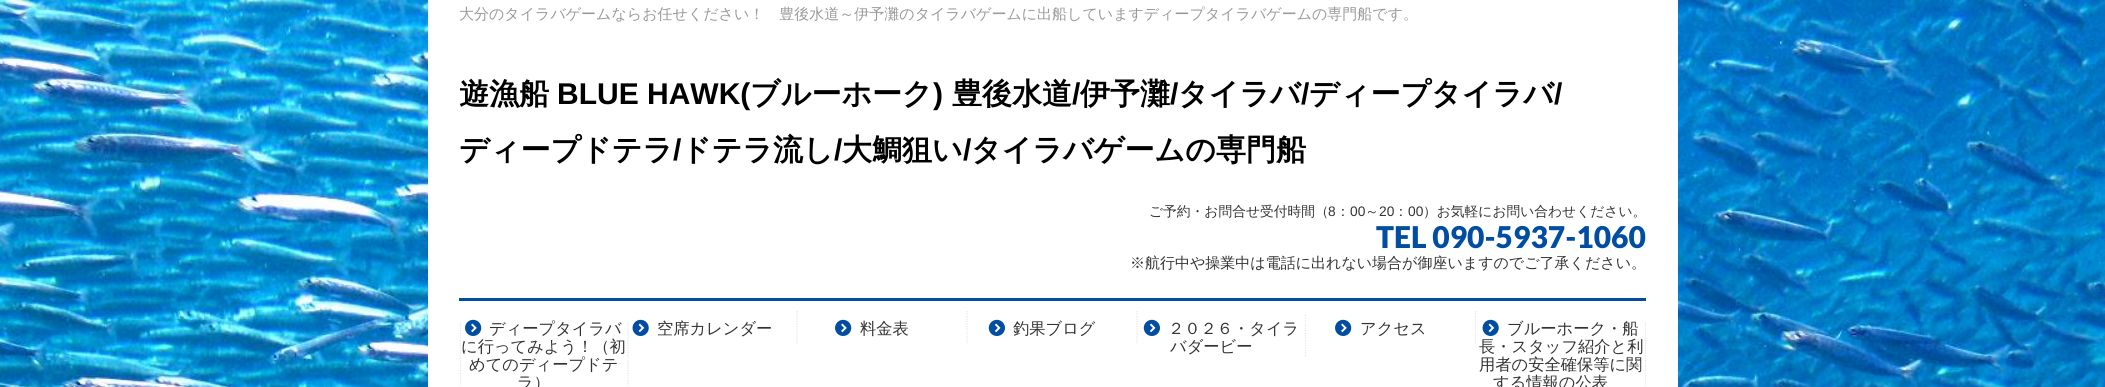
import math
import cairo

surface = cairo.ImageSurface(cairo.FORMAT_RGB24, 2105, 387)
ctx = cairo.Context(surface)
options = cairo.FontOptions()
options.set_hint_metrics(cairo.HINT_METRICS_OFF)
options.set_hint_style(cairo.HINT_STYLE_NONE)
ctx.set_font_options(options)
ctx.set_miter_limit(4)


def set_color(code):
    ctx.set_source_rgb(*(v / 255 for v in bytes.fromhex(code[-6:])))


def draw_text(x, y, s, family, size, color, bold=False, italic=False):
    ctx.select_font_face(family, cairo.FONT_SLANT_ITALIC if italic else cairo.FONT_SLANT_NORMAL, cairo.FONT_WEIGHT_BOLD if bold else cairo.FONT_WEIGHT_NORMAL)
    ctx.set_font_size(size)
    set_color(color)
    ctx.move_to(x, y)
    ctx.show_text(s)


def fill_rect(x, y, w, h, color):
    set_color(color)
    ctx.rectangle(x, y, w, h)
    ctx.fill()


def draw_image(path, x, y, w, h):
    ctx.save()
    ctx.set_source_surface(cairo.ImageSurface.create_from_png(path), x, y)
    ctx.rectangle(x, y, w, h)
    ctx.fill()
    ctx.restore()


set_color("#ffffff")
ctx.paint()
draw_image("assets/img1.png", 0, 0, 2105, 387)
fill_rect(428, 0, 1250, 387, "#ffffff")
draw_text(459, 19, "大分のタイラバゲームならお任せください！　豊後水道～伊予灘のタイラバゲームに出船していますディープタイラバゲームの専門船です。", "WenQuanYi Zen Hei Medium", 15, "#999999")
draw_text(459, 104, "遊漁船", "WenQuanYi Zen Hei", 30, "#000000", bold=True)
draw_text(557, 104, "BLUE HAWK(", "Liberation Sans", 30, "#000000", bold=True)
draw_text(750, 104, "ブルーホーク", "WenQuanYi Zen Hei", 30, "#000000", bold=True)
draw_text(933, 104, ")", "Liberation Sans", 30, "#000000", bold=True)
draw_text(952, 104, "豊後水道", "WenQuanYi Zen Hei", 30, "#000000", bold=True)
draw_text(1072, 104, "/", "Liberation Sans", 30, "#000000", bold=True)
draw_text(1080, 104, "伊予灘", "WenQuanYi Zen Hei", 30, "#000000", bold=True)
draw_text(1170, 104, "/", "Liberation Sans", 30, "#000000", bold=True)
draw_text(1178, 104, "タイラバ", "WenQuanYi Zen Hei", 30, "#000000", bold=True)
draw_text(1301, 104, "/", "Liberation Sans", 30, "#000000", bold=True)
draw_text(1309, 104, "ディープタイラバ", "WenQuanYi Zen Hei", 30, "#000000", bold=True)
draw_text(1554, 104, "/", "Liberation Sans", 30, "#000000", bold=True)
draw_text(459, 160, "ディープドテラ", "WenQuanYi Zen Hei", 30, "#000000", bold=True)
draw_text(673, 160, "/", "Liberation Sans", 30, "#000000", bold=True)
draw_text(681, 160, "ドテラ流し", "WenQuanYi Zen Hei", 30, "#000000", bold=True)
draw_text(834, 160, "/", "Liberation Sans", 30, "#000000", bold=True)
draw_text(842, 160, "大鯛狙い", "WenQuanYi Zen Hei", 30, "#000000", bold=True)
draw_text(963, 160, "/", "Liberation Sans", 30, "#000000", bold=True)
draw_text(971, 160, "タイラバゲームの専門船", "WenQuanYi Zen Hei", 30, "#000000", bold=True)
draw_text(1149, 216, "ご予約・お問合せ受付時間（", "WenQuanYi Zen Hei Medium", 13.75, "#333333")
draw_text(1328, 216, "8", "Liberation Sans", 13.75, "#333333")
draw_text(1336, 216, "：", "WenQuanYi Zen Hei Medium", 13.75, "#333333")
draw_text(1350, 216, "00", "Liberation Sans", 13.75, "#333333")
draw_text(1365, 216, "～", "WenQuanYi Zen Hei Medium", 13.75, "#333333")
draw_text(1379, 216, "20", "Liberation Sans", 13.75, "#333333")
draw_text(1394, 216, "：", "WenQuanYi Zen Hei Medium", 13.75, "#333333")
draw_text(1408, 216, "00", "Liberation Sans", 13.75, "#333333")
draw_text(1423, 216, "）お気軽にお問い合わせください。", "WenQuanYi Zen Hei Medium", 13.75, "#333333")
draw_text(1376, 248, "TEL 090-5937-1060", "Lato Black", 30, "#004da2")
draw_text(1130, 268, "※航行中や操業中は電話に出れない場合が御座いますのでご了承ください。", "WenQuanYi Zen Hei Medium", 15, "#333333")
fill_rect(459, 298, 1187, 3, "#004da2")
ctx.new_path()
ctx.move_to(460.5, 322.5)
ctx.line_to(460.5, 386)
set_color("#e5e5e5")
ctx.set_line_width(1.2)
ctx.set_dash([1.25, 1.25])
ctx.stroke()
draw_image("assets/img2.png", 465, 319, 17, 17)
draw_text(489, 334, "ディープタイラバ", "WenQuanYi Zen Hei Medium", 16.25, "#333333")
draw_text(461, 352, "に行ってみよう！（初", "WenQuanYi Zen Hei Medium", 16.25, "#333333")
draw_text(469, 370, "めてのディープドテ", "WenQuanYi Zen Hei Medium", 16.25, "#333333")
draw_text(517, 388, "ラ）", "WenQuanYi Zen Hei Medium", 16.25, "#333333")
ctx.new_path()
ctx.move_to(628, 322.5)
ctx.line_to(628, 386)
set_color("#e5e5e5")
ctx.stroke()
draw_image("assets/img3.png", 632, 319, 17, 17)
draw_text(657, 334, "空席カレンダー", "WenQuanYi Zen Hei Medium", 16.25, "#333333")
ctx.new_path()
ctx.move_to(797, 311)
ctx.line_to(797, 344)
set_color("#e5e5e5")
ctx.stroke()
draw_image("assets/img2.png", 835, 319, 17, 17)
draw_text(860, 334, "料金表", "WenQuanYi Zen Hei Medium", 16.25, "#333333")
ctx.new_path()
ctx.move_to(967, 311)
ctx.line_to(967, 344)
set_color("#e5e5e5")
ctx.stroke()
draw_image("assets/img4.png", 988, 319, 17, 17)
draw_text(1013, 334, "釣果ブログ", "WenQuanYi Zen Hei Medium", 16.25, "#333333")
ctx.new_path()
ctx.move_to(1137, 311)
ctx.line_to(1137, 344)
set_color("#e5e5e5")
ctx.stroke()
draw_image("assets/img4.png", 1143, 319, 17, 17)
draw_text(1168, 334, "２０２６・タイラ", "WenQuanYi Zen Hei Medium", 16.25, "#333333")
draw_text(1170, 352, "バダービー", "WenQuanYi Zen Hei Medium", 16.25, "#333333")
ctx.new_path()
ctx.move_to(1305.5, 315)
ctx.line_to(1305.5, 357.5)
set_color("#e5e5e5")
ctx.stroke()
draw_image("assets/img2.png", 1335, 319, 17, 17)
draw_text(1360, 334, "アクセス", "WenQuanYi Zen Hei Medium", 16.25, "#333333")
ctx.new_path()
ctx.move_to(1475.5, 311)
ctx.line_to(1475.5, 344)
set_color("#e5e5e5")
ctx.stroke()
draw_image("assets/img3.png", 1482, 319, 17, 17)
draw_text(1507, 334, "ブルーホーク・船", "WenQuanYi Zen Hei Medium", 16.25, "#333333")
draw_text(1479, 352, "長・スタッフ紹介と利", "WenQuanYi Zen Hei Medium", 16.25, "#333333")
draw_text(1479, 370, "用者の安全確保等に関", "WenQuanYi Zen Hei Medium", 16.25, "#333333")
draw_text(1493, 388, "する情報の公表", "WenQuanYi Zen Hei Medium", 16.25, "#333333")
ctx.new_path()
ctx.move_to(1645.5, 322.5)
ctx.line_to(1645.5, 386)
set_color("#e5e5e5")
ctx.stroke()
surface.write_to_png("output.png")
